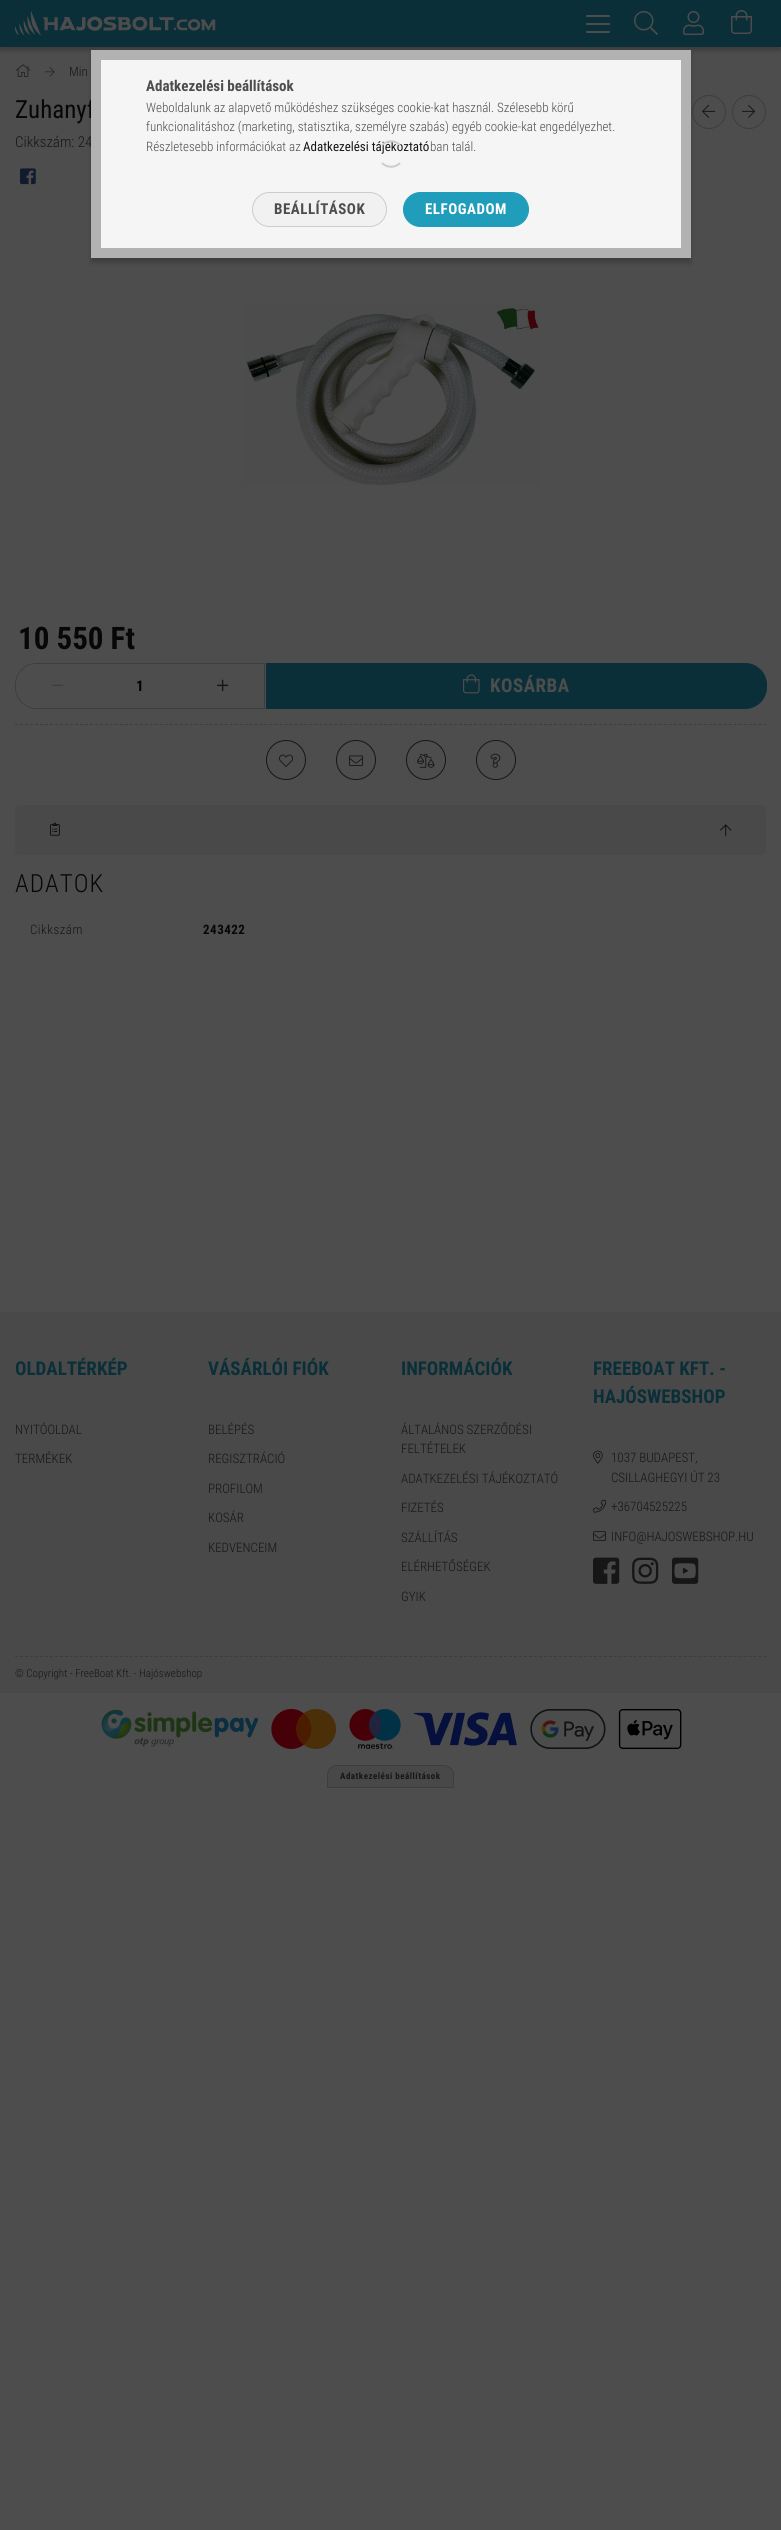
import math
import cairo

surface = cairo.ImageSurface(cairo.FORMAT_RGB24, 781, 2530)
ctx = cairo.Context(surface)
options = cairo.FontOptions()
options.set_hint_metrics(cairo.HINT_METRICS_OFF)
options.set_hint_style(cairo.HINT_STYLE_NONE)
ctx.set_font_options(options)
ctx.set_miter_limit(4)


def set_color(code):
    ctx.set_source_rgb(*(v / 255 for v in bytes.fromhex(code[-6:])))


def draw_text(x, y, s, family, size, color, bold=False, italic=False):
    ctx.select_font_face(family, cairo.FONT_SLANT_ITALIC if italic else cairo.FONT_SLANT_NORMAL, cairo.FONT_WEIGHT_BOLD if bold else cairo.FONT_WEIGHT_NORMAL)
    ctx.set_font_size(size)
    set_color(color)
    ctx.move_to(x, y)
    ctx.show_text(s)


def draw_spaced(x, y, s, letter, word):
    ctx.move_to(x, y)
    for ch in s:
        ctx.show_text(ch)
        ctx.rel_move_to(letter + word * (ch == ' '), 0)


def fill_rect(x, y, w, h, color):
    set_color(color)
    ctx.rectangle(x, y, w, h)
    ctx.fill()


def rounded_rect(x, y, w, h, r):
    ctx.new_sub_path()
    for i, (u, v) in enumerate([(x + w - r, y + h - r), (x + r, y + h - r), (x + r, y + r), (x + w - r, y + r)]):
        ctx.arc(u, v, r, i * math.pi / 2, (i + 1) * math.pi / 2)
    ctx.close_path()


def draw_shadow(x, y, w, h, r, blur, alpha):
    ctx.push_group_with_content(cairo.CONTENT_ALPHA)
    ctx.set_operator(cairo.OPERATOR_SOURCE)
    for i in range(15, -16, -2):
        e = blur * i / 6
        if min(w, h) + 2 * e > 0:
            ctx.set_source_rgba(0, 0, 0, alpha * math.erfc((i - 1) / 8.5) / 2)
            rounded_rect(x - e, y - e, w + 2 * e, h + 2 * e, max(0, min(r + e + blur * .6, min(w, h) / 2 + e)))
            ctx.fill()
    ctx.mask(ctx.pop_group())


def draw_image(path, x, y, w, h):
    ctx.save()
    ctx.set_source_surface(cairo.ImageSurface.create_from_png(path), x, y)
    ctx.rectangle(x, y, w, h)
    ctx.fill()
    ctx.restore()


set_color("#4d4d4d")
ctx.paint()
set_color("#000000")
draw_shadow(0, 4, 781, 47, 0, 2, 0.2)
fill_rect(0, 0, 781, 47, "#0a2f38")
draw_image("assets/img1.png", 15, 11, 201, 25)
set_color("#4d4d4d")
rounded_rect(586, 15, 24, 2, 1)
ctx.fill()
rounded_rect(586, 23, 24, 2, 1)
ctx.fill()
rounded_rect(586, 31, 24, 2, 1)
ctx.fill()
draw_image("assets/img2.png", 634, 11, 24, 24)
draw_image("assets/img3.png", 683, 11, 21, 24)
draw_image("assets/img4.png", 731, 10, 21, 24)
draw_image("assets/img5.png", 16, 64, 15, 13)
draw_image("assets/img6.png", 45, 67, 10, 10)
draw_text(69, 76, "Min", "Roboto Condensed Light", 13, "#161616")
draw_text(15, 118, "Zuhanyf", "Roboto Condensed", 25, "#070707")
ctx.new_path()
ctx.arc(709, 112, 16.5, 0, 2 * math.pi)
set_color("#3d3d3d")
ctx.set_line_width(1)
ctx.stroke()
draw_image("assets/img7.png", 702, 104, 14, 14)
ctx.arc(749, 112, 16.5, 0, 2 * math.pi)
ctx.stroke()
draw_image("assets/img8.png", 742, 104, 14, 14)
draw_text(15, 147, "Cikkszám: 24", "Roboto Condensed Light", 15, "#161616")
draw_image("assets/img9.png", 20, 168, 16, 17)
draw_image("assets/img10.png", 246, 304, 294, 182)
draw_text(18, 649, "10 550 Ft", "Roboto Condensed", 31, "#070707", bold=True)
ctx.new_path()
ctx.move_to(37, 663.5)
ctx.line_to(264.5, 663.5)
ctx.line_to(264.5, 708.5)
ctx.line_to(37, 708.5)
ctx.curve_to(25, 708.5, 15.5, 699, 15.5, 687)
ctx.line_to(15.5, 685)
ctx.curve_to(15.5, 673, 25, 663.5, 37, 663.5)
ctx.close_path()
set_color("#3d3d3d")
ctx.stroke()
set_color("#4d4d4d")
ctx.new_path()
ctx.move_to(37, 664)
ctx.line_to(99, 664)
ctx.line_to(99, 708)
ctx.line_to(37, 708)
ctx.curve_to(25.5, 708, 16, 698.5, 16, 687)
ctx.line_to(16, 685)
ctx.curve_to(16, 673.5, 25.5, 664, 37, 664)
ctx.close_path()
ctx.fill()
draw_image("assets/img11.png", 52, 684, 12, 2)
draw_text(136, 691, "1", "Roboto Condensed", 15, "#000000", bold=True)
draw_image("assets/img12.png", 217, 679, 12, 12)
set_color("#0a2f38")
ctx.new_path()
ctx.move_to(266.5, 663.5)
ctx.line_to(745, 663.5)
ctx.curve_to(757, 663.5, 766.5, 673, 766.5, 685)
ctx.line_to(766.5, 687)
ctx.curve_to(766.5, 699, 757, 708.5, 745, 708.5)
ctx.line_to(266.5, 708.5)
ctx.close_path()
ctx.fill_preserve()
ctx.stroke()
draw_image("assets/img13.png", 463, 674, 17, 20)
ctx.set_font_size(19)
set_color("#4d4d4d")
draw_spaced(490, 692, "KOSÁRBA", 0.5, 0)
ctx.new_path()
ctx.move_to(15, 724.5)
ctx.line_to(766, 724.5)
set_color("#3d3d3d")
ctx.set_dash([3, 1.99])
ctx.stroke()
ctx.arc(286, 760, 19.5, 0, 2 * math.pi)
set_color("#161616")
ctx.set_dash([])
ctx.stroke()
draw_image("assets/img14.png", 279, 754, 14, 13)
ctx.arc(356, 760, 19.5, 0, 2 * math.pi)
ctx.stroke()
draw_image("assets/img15.png", 349, 755, 14, 11)
ctx.arc(426, 760, 19.5, 0, 2 * math.pi)
ctx.stroke()
draw_image("assets/img16.png", 417, 753, 18, 15)
ctx.arc(496, 760, 19.5, 0, 2 * math.pi)
ctx.stroke()
draw_image("assets/img17.png", 490, 753, 11, 15)
set_color("#494949")
rounded_rect(15, 805, 751, 50, 5)
ctx.fill()
draw_image("assets/img18.png", 50, 822, 10, 14)
draw_image("assets/img19.png", 720, 824, 12, 12)
ctx.select_font_face("Roboto Condensed Light")
ctx.set_font_size(25)
set_color("#070707")
draw_spaced(15, 892, "ADATOK", 1, 0)
ctx.set_font_size(13)
set_color("#161616")
draw_spaced(30, 934, "Cikkszám", 0.5, 0)
ctx.select_font_face("Roboto Condensed", cairo.FONT_SLANT_NORMAL, cairo.FONT_WEIGHT_BOLD)
set_color("#070707")
draw_spaced(203, 934, "243422", 0.5, 0)
fill_rect(0, 1312, 781, 381, "#494949")
draw_text(15, 1375, "OLDALTÉRKÉP", "Roboto Condensed", 19, "#0a2f38", bold=True)
draw_text(15, 1434, "NYITÓOLDAL", "Roboto Condensed Light", 13, "#161616")
draw_text(15, 1463, "TERMÉKEK", "Roboto Condensed Light", 13, "#161616")
draw_text(208, 1375, "VÁSÁRLÓI FIÓK", "Roboto Condensed", 19, "#0a2f38", bold=True)
draw_text(208, 1434, "BELÉPÉS", "Roboto Condensed Light", 13, "#161616")
draw_text(208, 1463, "REGISZTRÁCIÓ", "Roboto Condensed Light", 13, "#161616")
draw_text(208, 1493, "PROFILOM", "Roboto Condensed Light", 13, "#161616")
draw_text(208, 1522, "KOSÁR", "Roboto Condensed Light", 13, "#161616")
draw_text(208, 1552, "KEDVENCEIM", "Roboto Condensed Light", 13, "#161616")
draw_text(401, 1375, "INFORMÁCIÓK", "Roboto Condensed", 19, "#0a2f38", bold=True)
draw_text(401, 1434, "ÁLTALÁNOS SZERZŐDÉSI", "Roboto Condensed Light", 13, "#161616")
draw_text(401, 1453, "FELTÉTELEK", "Roboto Condensed Light", 13, "#161616")
draw_text(401, 1483, "ADATKEZELÉSI TÁJÉKOZTATÓ", "Roboto Condensed Light", 13, "#161616")
draw_text(401, 1512, "FIZETÉS", "Roboto Condensed Light", 13, "#161616")
draw_text(401, 1542, "SZÁLLÍTÁS", "Roboto Condensed Light", 13, "#161616")
draw_text(401, 1571, "ELÉRHETŐSÉGEK", "Roboto Condensed Light", 13, "#161616")
draw_text(401, 1601, "GYIK", "Roboto Condensed Light", 13, "#161616")
draw_text(593, 1375, "FREEBOAT KFT. -", "Roboto Condensed", 19, "#0a2f38", bold=True)
draw_text(593, 1403, "HAJÓSWEBSHOP", "Roboto Condensed", 19, "#0a2f38", bold=True)
draw_image("assets/img20.png", 593, 1450, 10, 14)
draw_text(611, 1462, "1037 BUDAPEST,", "Roboto Condensed Light", 13, "#161616")
draw_text(611, 1482, "CSILLAGHEGYI ÚT 23", "Roboto Condensed Light", 13, "#161616")
draw_image("assets/img21.png", 593, 1499, 13, 14)
draw_text(611, 1511, "+36704525225", "Roboto Condensed Light", 13, "#161616")
draw_image("assets/img22.png", 593, 1531, 13, 10)
draw_text(611, 1541, "INFO@HAJOSWEBSHOP.HU", "Roboto Condensed Light", 13, "#161616")
draw_image("assets/img23.png", 593, 1557, 27, 27)
draw_image("assets/img24.png", 632, 1557, 27, 27)
draw_image("assets/img25.png", 672, 1557, 27, 27)
ctx.new_path()
ctx.move_to(15, 1656.5)
ctx.line_to(766, 1656.5)
set_color("#3d3d3d")
ctx.set_dash([3, 1.99])
ctx.stroke()
draw_text(15, 1677, "© Copyright - FreeBoat Kft. - Hajóswebshop", "Roboto Condensed Light", 11, "#161616")
draw_image("assets/img26.png", 101, 1709, 581, 40)
set_color("#000000")
draw_shadow(91, 55, 600, 208, 0, 2.5, 0.2)
ctx.rectangle(96, 55, 590, 198)
set_color("#b2b2b2")
ctx.set_line_width(10)
ctx.set_dash([])
ctx.stroke()
fill_rect(101, 60, 580, 188, "#f5f5f5")
draw_text(146, 91, "Adatkezelési beállítások", "Roboto Condensed", 15, "#4d4d4d", bold=True)
draw_text(146, 112, "Weboldalunk az alapvető működéshez szükséges cookie-kat használ. Szélesebb körű", "Roboto Condensed Light", 13, "#4d4d4d")
draw_text(146, 131, "funkcionalitáshoz (marketing, statisztika, személyre szabás) egyéb cookie-kat engedélyezhet.", "Roboto Condensed Light", 13, "#4d4d4d")
draw_text(146, 151, "Részletesebb információkat az", "Roboto Condensed Light", 13, "#4d4d4d")
draw_text(303, 151, "Adatkezelési tájékoztató", "Roboto Condensed", 13, "#161616")
draw_text(430, 151, "ban talál.", "Roboto Condensed Light", 13, "#4d4d4d")
set_color("#f1f1f1")
rounded_rect(252.5, 192.5, 134, 34, 17)
ctx.fill_preserve()
set_color("#cccccc")
ctx.set_line_width(1)
ctx.stroke()
ctx.select_font_face("Roboto Condensed", cairo.FONT_SLANT_NORMAL, cairo.FONT_WEIGHT_BOLD)
ctx.set_font_size(15)
set_color("#4d4d4d")
draw_spaced(274, 214, "BEÁLLÍTÁSOK", 0.5, 0)
set_color("#219dbc")
rounded_rect(403.5, 192.5, 125, 34, 17)
ctx.fill_preserve()
ctx.stroke()
set_color("#ffffff")
draw_spaced(425, 214, "ELFOGADOM", 0.5, 0)
ctx.new_path()
ctx.move_to(382, 145)
ctx.curve_to(387, 140, 395, 140, 400, 145)
ctx.move_to(400, 163)
ctx.curve_to(395, 168, 387, 168, 382, 163)
set_color("#cccccc")
ctx.set_line_width(2)
ctx.stroke()
set_color("#484848")
ctx.new_path()
ctx.move_to(337, 1765.5)
ctx.line_to(444, 1765.5)
ctx.curve_to(449, 1765.5, 453.5, 1770, 453.5, 1775)
ctx.line_to(453.5, 1787.5)
ctx.line_to(327.5, 1787.5)
ctx.line_to(327.5, 1775)
ctx.curve_to(327.5, 1770, 332, 1765.5, 337, 1765.5)
ctx.close_path()
ctx.fill_preserve()
set_color("#3d3d3d")
ctx.set_line_width(1)
ctx.stroke()
ctx.set_font_size(9)
set_color("#161616")
draw_spaced(340, 1779, "Adatkezelési beállítások", 0.5, 0)
surface.write_to_png("output.png")
